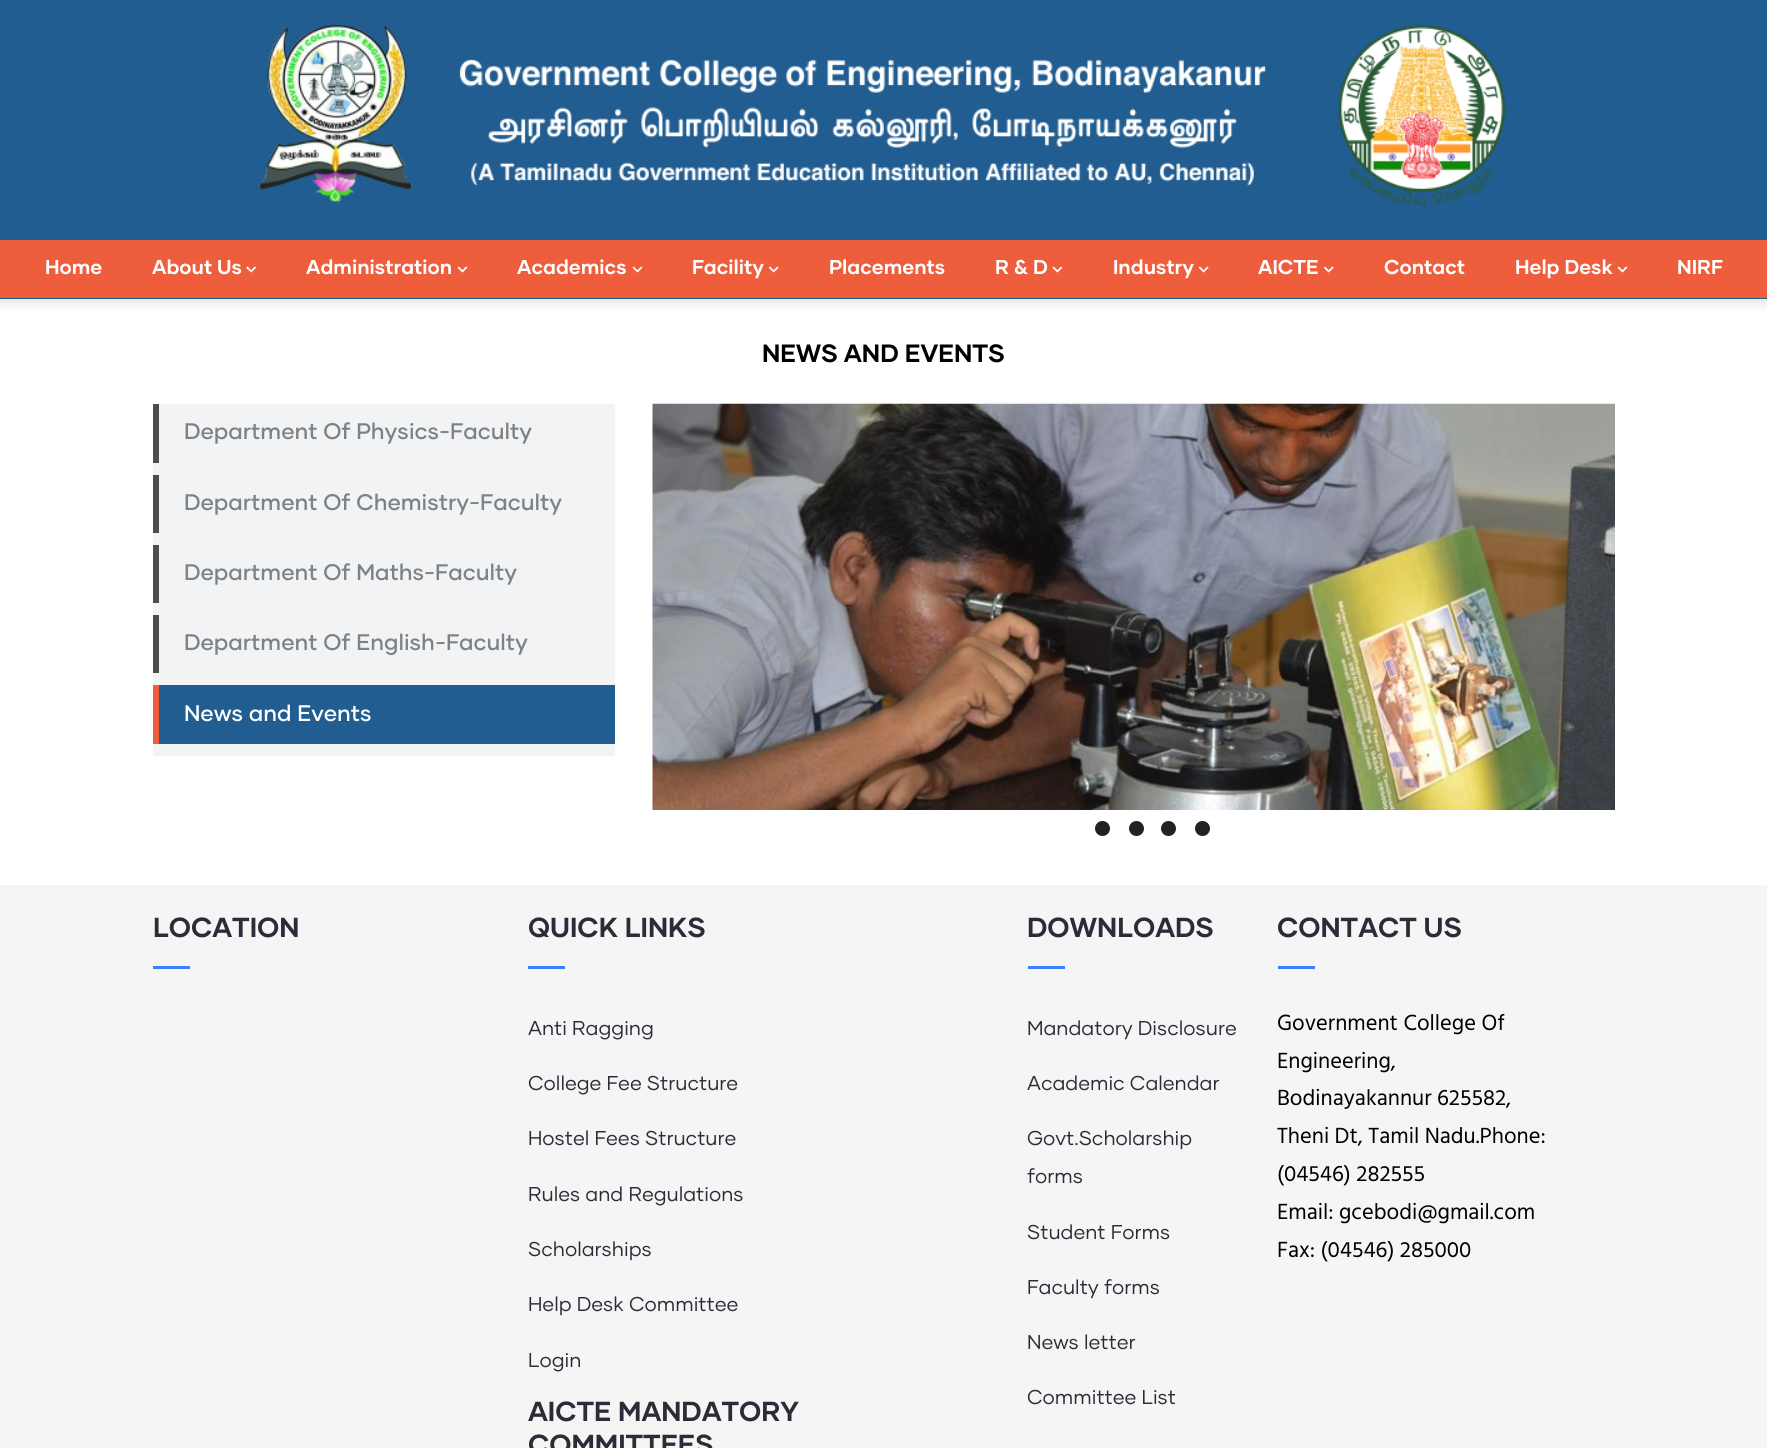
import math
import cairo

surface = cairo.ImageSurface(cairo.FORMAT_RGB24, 1767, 1448)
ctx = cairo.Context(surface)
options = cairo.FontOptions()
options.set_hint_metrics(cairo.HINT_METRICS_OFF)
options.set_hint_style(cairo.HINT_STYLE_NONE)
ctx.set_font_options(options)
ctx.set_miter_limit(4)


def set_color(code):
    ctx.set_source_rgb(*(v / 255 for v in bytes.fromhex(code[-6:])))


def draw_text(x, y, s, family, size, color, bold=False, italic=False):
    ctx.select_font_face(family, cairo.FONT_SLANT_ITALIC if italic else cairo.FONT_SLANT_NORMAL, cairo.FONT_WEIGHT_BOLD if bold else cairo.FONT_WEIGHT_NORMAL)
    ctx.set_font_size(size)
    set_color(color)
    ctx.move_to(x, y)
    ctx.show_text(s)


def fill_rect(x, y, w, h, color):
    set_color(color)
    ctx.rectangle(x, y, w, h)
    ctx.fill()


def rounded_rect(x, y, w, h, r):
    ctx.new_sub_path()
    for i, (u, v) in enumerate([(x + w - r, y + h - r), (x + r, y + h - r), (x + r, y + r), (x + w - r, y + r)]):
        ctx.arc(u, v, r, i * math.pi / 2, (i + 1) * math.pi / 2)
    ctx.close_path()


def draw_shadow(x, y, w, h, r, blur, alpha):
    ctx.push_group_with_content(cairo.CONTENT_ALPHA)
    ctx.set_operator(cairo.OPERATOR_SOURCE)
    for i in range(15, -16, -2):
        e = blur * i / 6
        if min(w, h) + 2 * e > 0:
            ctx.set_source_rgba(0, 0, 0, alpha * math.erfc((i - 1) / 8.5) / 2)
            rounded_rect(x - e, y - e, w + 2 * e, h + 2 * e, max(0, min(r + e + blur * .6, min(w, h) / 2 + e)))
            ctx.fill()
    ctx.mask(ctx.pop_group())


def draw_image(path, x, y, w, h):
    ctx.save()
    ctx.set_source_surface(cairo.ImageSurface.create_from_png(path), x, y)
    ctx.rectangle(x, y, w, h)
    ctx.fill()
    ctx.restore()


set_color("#ffffff")
ctx.paint()
set_color("#000000")
draw_shadow(-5, -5, 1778, 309, 0, 6, 0.1)
fill_rect(0, 0, 1767, 240, "#225d91")
fill_rect(0, 298, 1767, 1, "#1f5685")
draw_image("assets/img1.png", 258, 24, 1248, 182)
fill_rect(0, 240, 1767, 58, "#ee5e3d")
draw_text(45, 274, "Home", "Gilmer", 20, "#ffffff", bold=True)
draw_text(152, 274, "About Us", "Gilmer", 20, "#ffffff", bold=True)
draw_image("assets/img2.png", 246, 266, 10, 7)
draw_text(306, 274, "Administration", "Gilmer", 20, "#ffffff", bold=True)
draw_image("assets/img3.png", 457, 266, 11, 7)
draw_text(517, 274, "Academics", "Gilmer", 20, "#ffffff", bold=True)
draw_image("assets/img3.png", 632, 266, 11, 7)
draw_text(692, 274, "Facility", "Gilmer", 20, "#ffffff", bold=True)
draw_image("assets/img4.png", 768, 266, 11, 7)
draw_text(829, 274, "Placements", "Gilmer", 20, "#ffffff", bold=True)
draw_text(995, 274, "R & D", "Gilmer", 20, "#ffffff", bold=True)
draw_image("assets/img3.png", 1052, 266, 11, 7)
draw_text(1113, 274, "Industry", "Gilmer", 20, "#ffffff", bold=True)
draw_image("assets/img4.png", 1198, 266, 11, 7)
draw_text(1258, 274, "AICTE", "Gilmer", 20, "#ffffff", bold=True)
draw_image("assets/img4.png", 1323, 266, 11, 7)
draw_text(1384, 274, "Contact", "Gilmer", 20, "#ffffff", bold=True)
draw_text(1515, 274, "Help Desk", "Gilmer", 20, "#ffffff", bold=True)
draw_image("assets/img3.png", 1617, 266, 11, 7)
draw_text(1677, 274, "NIRF", "Gilmer", 20, "#ffffff", bold=True)
draw_text(762, 362, "NEWS AND EVENTS", "Gilmer", 25, "#000000", bold=True)
fill_rect(153, 404, 462, 281, "#f1f3f5")
fill_rect(153, 404, 6, 59, "#4d4d4d")
draw_text(184, 439, "Department Of Physics-Faculty", "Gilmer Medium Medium", 22.5, "#7f8284")
fill_rect(153, 475, 6, 58, "#4d4d4d")
draw_text(184, 510, "Department Of Chemistry-Faculty", "Gilmer Medium Medium", 22.5, "#7f8284")
fill_rect(153, 545, 6, 58, "#4d4d4d")
draw_text(184, 580, "Department Of Maths-Faculty", "Gilmer Medium Medium", 22.5, "#7f8284")
fill_rect(153, 615, 6, 58, "#4d4d4d")
draw_text(184, 650, "Department Of English-Faculty", "Gilmer Medium Medium", 22.5, "#7f8284")
fill_rect(153, 744, 462, 12, "#f1f3f5")
fill_rect(159, 685, 456, 59, "#225d91")
fill_rect(153, 685, 6, 59, "#ee5e3d")
draw_text(184, 721, "News and Events", "Gilmer Medium Medium", 22.5, "#ffffff")
draw_image("assets/img5.png", 652, 403, 963, 407)
set_color("#222222")
ctx.arc(1102.5, 828.5, 7.5, 0, 2 * math.pi)
ctx.fill()
ctx.arc(1136.5, 828.5, 7.5, 0, 2 * math.pi)
ctx.fill()
ctx.arc(1168.5, 828.5, 7.5, 0, 2 * math.pi)
ctx.fill()
ctx.arc(1202.5, 828.5, 7.5, 0, 2 * math.pi)
ctx.fill()
fill_rect(0, 885, 1767, 563, "#f5f5f5")
draw_text(153, 937, "LOCATION", "Gilmer", 27.5, "#2a2c38", bold=True)
fill_rect(153, 966, 37, 3, "#3b7eff")
draw_text(528, 937, "QUICK LINKS", "Gilmer", 27.5, "#2a2c38", bold=True)
fill_rect(528, 966, 37, 3, "#3b7eff")
draw_text(528, 1035, "Anti Ragging", "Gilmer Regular", 20, "#2a2c38")
draw_text(528, 1090, "College Fee Structure", "Gilmer Regular", 20, "#2a2c38")
draw_text(528, 1145, "Hostel Fees Structure", "Gilmer Regular", 20, "#2a2c38")
draw_text(528, 1201, "Rules and Regulations", "Gilmer Regular", 20, "#2a2c38")
draw_text(528, 1256, "Scholarships", "Gilmer Regular", 20, "#2a2c38")
draw_text(528, 1311, "Help Desk Committee", "Gilmer Regular", 20, "#2a2c38")
draw_text(528, 1367, "Login", "Gilmer Regular", 20, "#2a2c38")
draw_text(528, 1421, "AICTE MANDATORY", "Gilmer", 27.5, "#2a2c38", bold=True)
draw_text(528, 1454, "COMMITTEES", "Gilmer", 27.5, "#2a2c38", bold=True)
draw_text(1027, 937, "DOWNLOADS", "Gilmer", 27.5, "#2a2c38", bold=True)
fill_rect(1028, 966, 37, 3, "#3b7eff")
draw_text(1027, 1035, "Mandatory Disclosure", "Gilmer Regular", 20, "#2a2c38")
draw_text(1027, 1090, "Academic Calendar", "Gilmer Regular", 20, "#2a2c38")
draw_text(1027, 1145, "Govt.Scholarship", "Gilmer Regular", 20, "#2a2c38")
draw_text(1027, 1183, "forms", "Gilmer Regular", 20, "#2a2c38")
draw_text(1027, 1239, "Student Forms", "Gilmer Regular", 20, "#2a2c38")
draw_text(1027, 1294, "Faculty forms", "Gilmer Regular", 20, "#2a2c38")
draw_text(1027, 1349, "News letter", "Gilmer Regular", 20, "#2a2c38")
draw_text(1027, 1404, "Committee List", "Gilmer Regular", 20, "#2a2c38")
draw_text(1277, 937, "CONTACT US", "Gilmer", 27.5, "#2a2c38", bold=True)
fill_rect(1278, 966, 37, 3, "#3b7eff")
draw_text(1277, 1030, "Government College Of", "Hind", 22.5, "#000000")
draw_text(1277, 1068, "Engineering,", "Hind", 22.5, "#000000")
draw_text(1277, 1105, "Bodinayakannur 625582,", "Hind", 22.5, "#000000")
draw_text(1277, 1143, "Theni Dt, Tamil Nadu.Phone:", "Hind", 22.5, "#000000")
draw_text(1277, 1181, "(04546) 282555", "Hind", 22.5, "#000000")
draw_text(1277, 1219, "Email: gcebodi@gmail.com", "Hind", 22.5, "#000000")
draw_text(1277, 1257, "Fax: (04546) 285000", "Hind", 22.5, "#000000")
surface.write_to_png("output.png")
